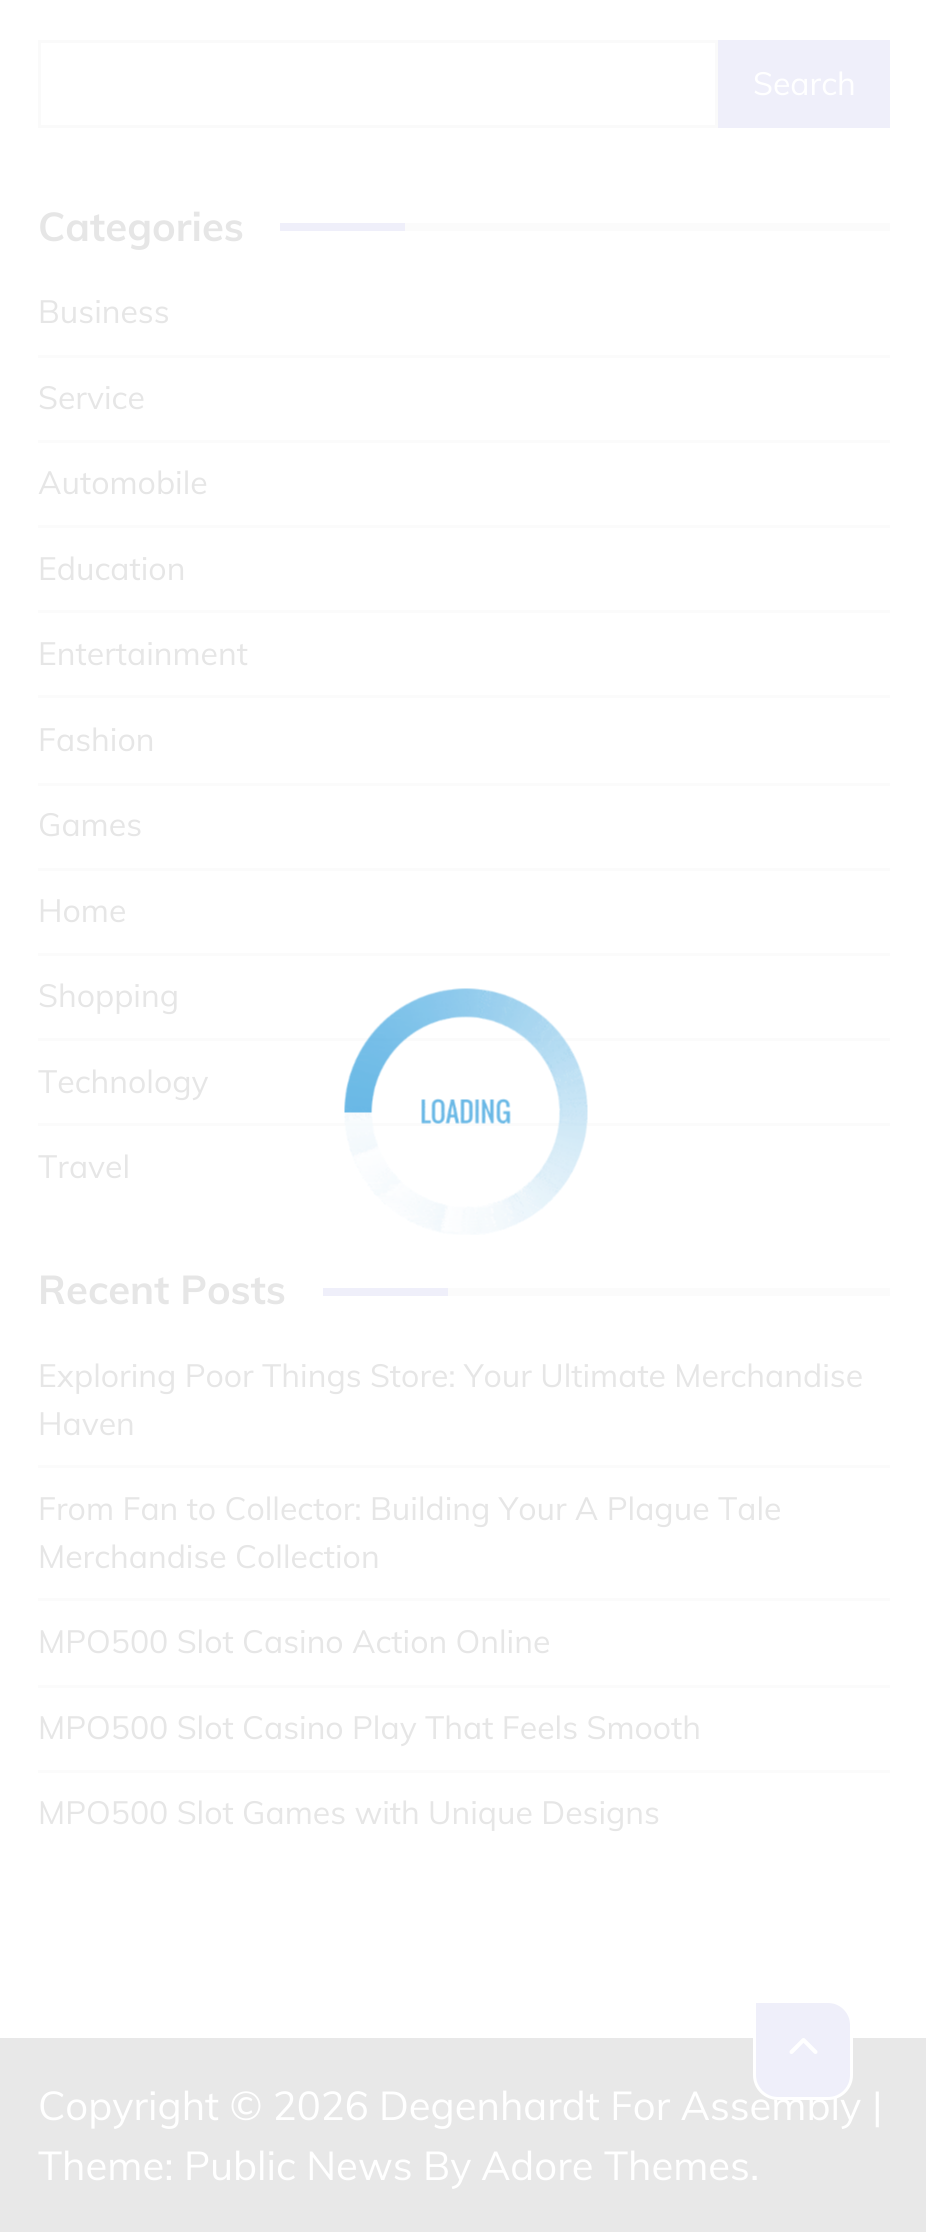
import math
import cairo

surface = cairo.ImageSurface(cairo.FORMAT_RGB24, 926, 2232)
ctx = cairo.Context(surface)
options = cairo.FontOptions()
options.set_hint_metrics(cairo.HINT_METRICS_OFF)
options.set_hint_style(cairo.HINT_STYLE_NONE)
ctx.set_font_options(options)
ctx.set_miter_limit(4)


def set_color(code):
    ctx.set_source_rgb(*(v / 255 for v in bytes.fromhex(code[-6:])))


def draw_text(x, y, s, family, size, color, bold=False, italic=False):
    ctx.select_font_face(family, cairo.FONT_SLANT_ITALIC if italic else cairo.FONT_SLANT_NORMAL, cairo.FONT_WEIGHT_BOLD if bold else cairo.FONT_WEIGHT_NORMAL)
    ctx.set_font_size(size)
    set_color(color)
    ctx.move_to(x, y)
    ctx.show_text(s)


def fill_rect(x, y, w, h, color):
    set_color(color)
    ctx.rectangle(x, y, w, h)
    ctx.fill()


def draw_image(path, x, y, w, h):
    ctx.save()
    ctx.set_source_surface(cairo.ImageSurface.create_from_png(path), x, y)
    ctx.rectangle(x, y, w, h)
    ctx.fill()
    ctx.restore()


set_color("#ffffff")
ctx.paint()
ctx.rectangle(39.5, 41.5, 677, 85)
set_color("#fafafa")
ctx.set_line_width(3)
ctx.stroke()
fill_rect(718, 40, 172, 88, "#efeffa")
draw_text(753, 95, "Search", "Muli", 32, "#ffffff")
draw_text(38, 241, "Categories", "Muli", 40, "#e6e6e6", bold=True)
fill_rect(280, 223, 125, 8, "#efeffa")
fill_rect(405, 223, 485, 8, "#fbfbfb")
fill_rect(38, 355, 852, 3, "#fbfbfb")
draw_text(38, 323, "Business", "Muli", 32, "#e6e6e6")
fill_rect(38, 440, 852, 3, "#fbfbfb")
draw_text(38, 409, "Service", "Muli", 32, "#e6e6e6")
fill_rect(38, 525, 852, 3, "#fbfbfb")
draw_text(38, 494, "Automobile", "Muli", 32, "#e6e6e6")
fill_rect(38, 610, 852, 3, "#fbfbfb")
draw_text(38, 580, "Education", "Muli", 32, "#e6e6e6")
fill_rect(38, 695, 852, 3, "#fbfbfb")
draw_text(38, 665, "Entertainment", "Muli", 32, "#e6e6e6")
fill_rect(38, 783, 852, 3, "#fbfbfb")
draw_text(38, 751, "Fashion", "Muli", 32, "#e6e6e6")
fill_rect(38, 868, 852, 3, "#fbfbfb")
draw_text(38, 836, "Games", "Muli", 32, "#e6e6e6")
fill_rect(38, 953, 852, 3, "#fbfbfb")
draw_text(38, 922, "Home", "Muli", 32, "#e6e6e6")
fill_rect(38, 1038, 852, 3, "#fbfbfb")
draw_text(38, 1007, "Shopping", "Muli", 32, "#e6e6e6")
fill_rect(38, 1123, 852, 3, "#fbfbfb")
draw_text(38, 1093, "Technology", "Muli", 32, "#e6e6e6")
draw_text(38, 1178, "Travel", "Muli", 32, "#e6e6e6")
draw_text(38, 1304, "Recent Posts", "Muli", 40, "#e6e6e6", bold=True)
fill_rect(323, 1288, 125, 8, "#efeffa")
fill_rect(448, 1288, 442, 8, "#fbfbfb")
fill_rect(38, 1465, 852, 3, "#fbfbfb")
draw_text(38, 1387, "Exploring Poor Things Store: Your Ultimate Merchandise", "Muli", 32, "#e6e6e6")
draw_text(38, 1435, "Haven", "Muli", 32, "#e6e6e6")
fill_rect(38, 1598, 852, 3, "#fbfbfb")
draw_text(38, 1520, "From Fan to Collector: Building Your A Plague Tale", "Muli", 32, "#e6e6e6")
draw_text(38, 1568, "Merchandise Collection", "Muli", 32, "#e6e6e6")
fill_rect(38, 1685, 852, 3, "#fbfbfb")
draw_text(38, 1653, "MPO500 Slot Casino Action Online", "Muli", 32, "#e6e6e6")
fill_rect(38, 1770, 852, 3, "#fbfbfb")
draw_text(38, 1739, "MPO500 Slot Casino Play That Feels Smooth", "Muli", 32, "#e6e6e6")
draw_text(38, 1824, "MPO500 Slot Games with Unique Designs", "Muli", 32, "#e6e6e6")
draw_image("assets/img1.png", 344, 988, 244, 247)
fill_rect(0, 2038, 926, 194, "#e8e8e8")
draw_text(379, 2120, "Degenhardt For Assembly", "Muli", 40, "#ffffff")
set_color("#efeffa")
ctx.new_path()
ctx.move_to(754.5, 2001.5)
ctx.line_to(828, 2001.5)
ctx.curve_to(841, 2001.5, 851.5, 2012, 851.5, 2025)
ctx.line_to(851.5, 2075)
ctx.curve_to(851.5, 2088, 841, 2098.5, 828, 2098.5)
ctx.line_to(778, 2098.5)
ctx.curve_to(765, 2098.5, 754.5, 2088, 754.5, 2075)
ctx.close_path()
ctx.fill_preserve()
set_color("#ffffff")
ctx.stroke()
draw_image("assets/img2.png", 789, 2038, 29, 16)
draw_text(38, 2120, "Copyright © 2026", "Muli", 40, "#ffffff")
draw_text(872, 2120, "|", "Muli", 40, "#ffffff")
draw_text(38, 2180, "Theme: Public News By", "Muli", 40, "#ffffff")
draw_text(481, 2180, "Adore Themes", "Muli", 40, "#ffffff")
draw_text(750, 2180, ".", "Muli", 40, "#ffffff")
surface.write_to_png("output.png")
